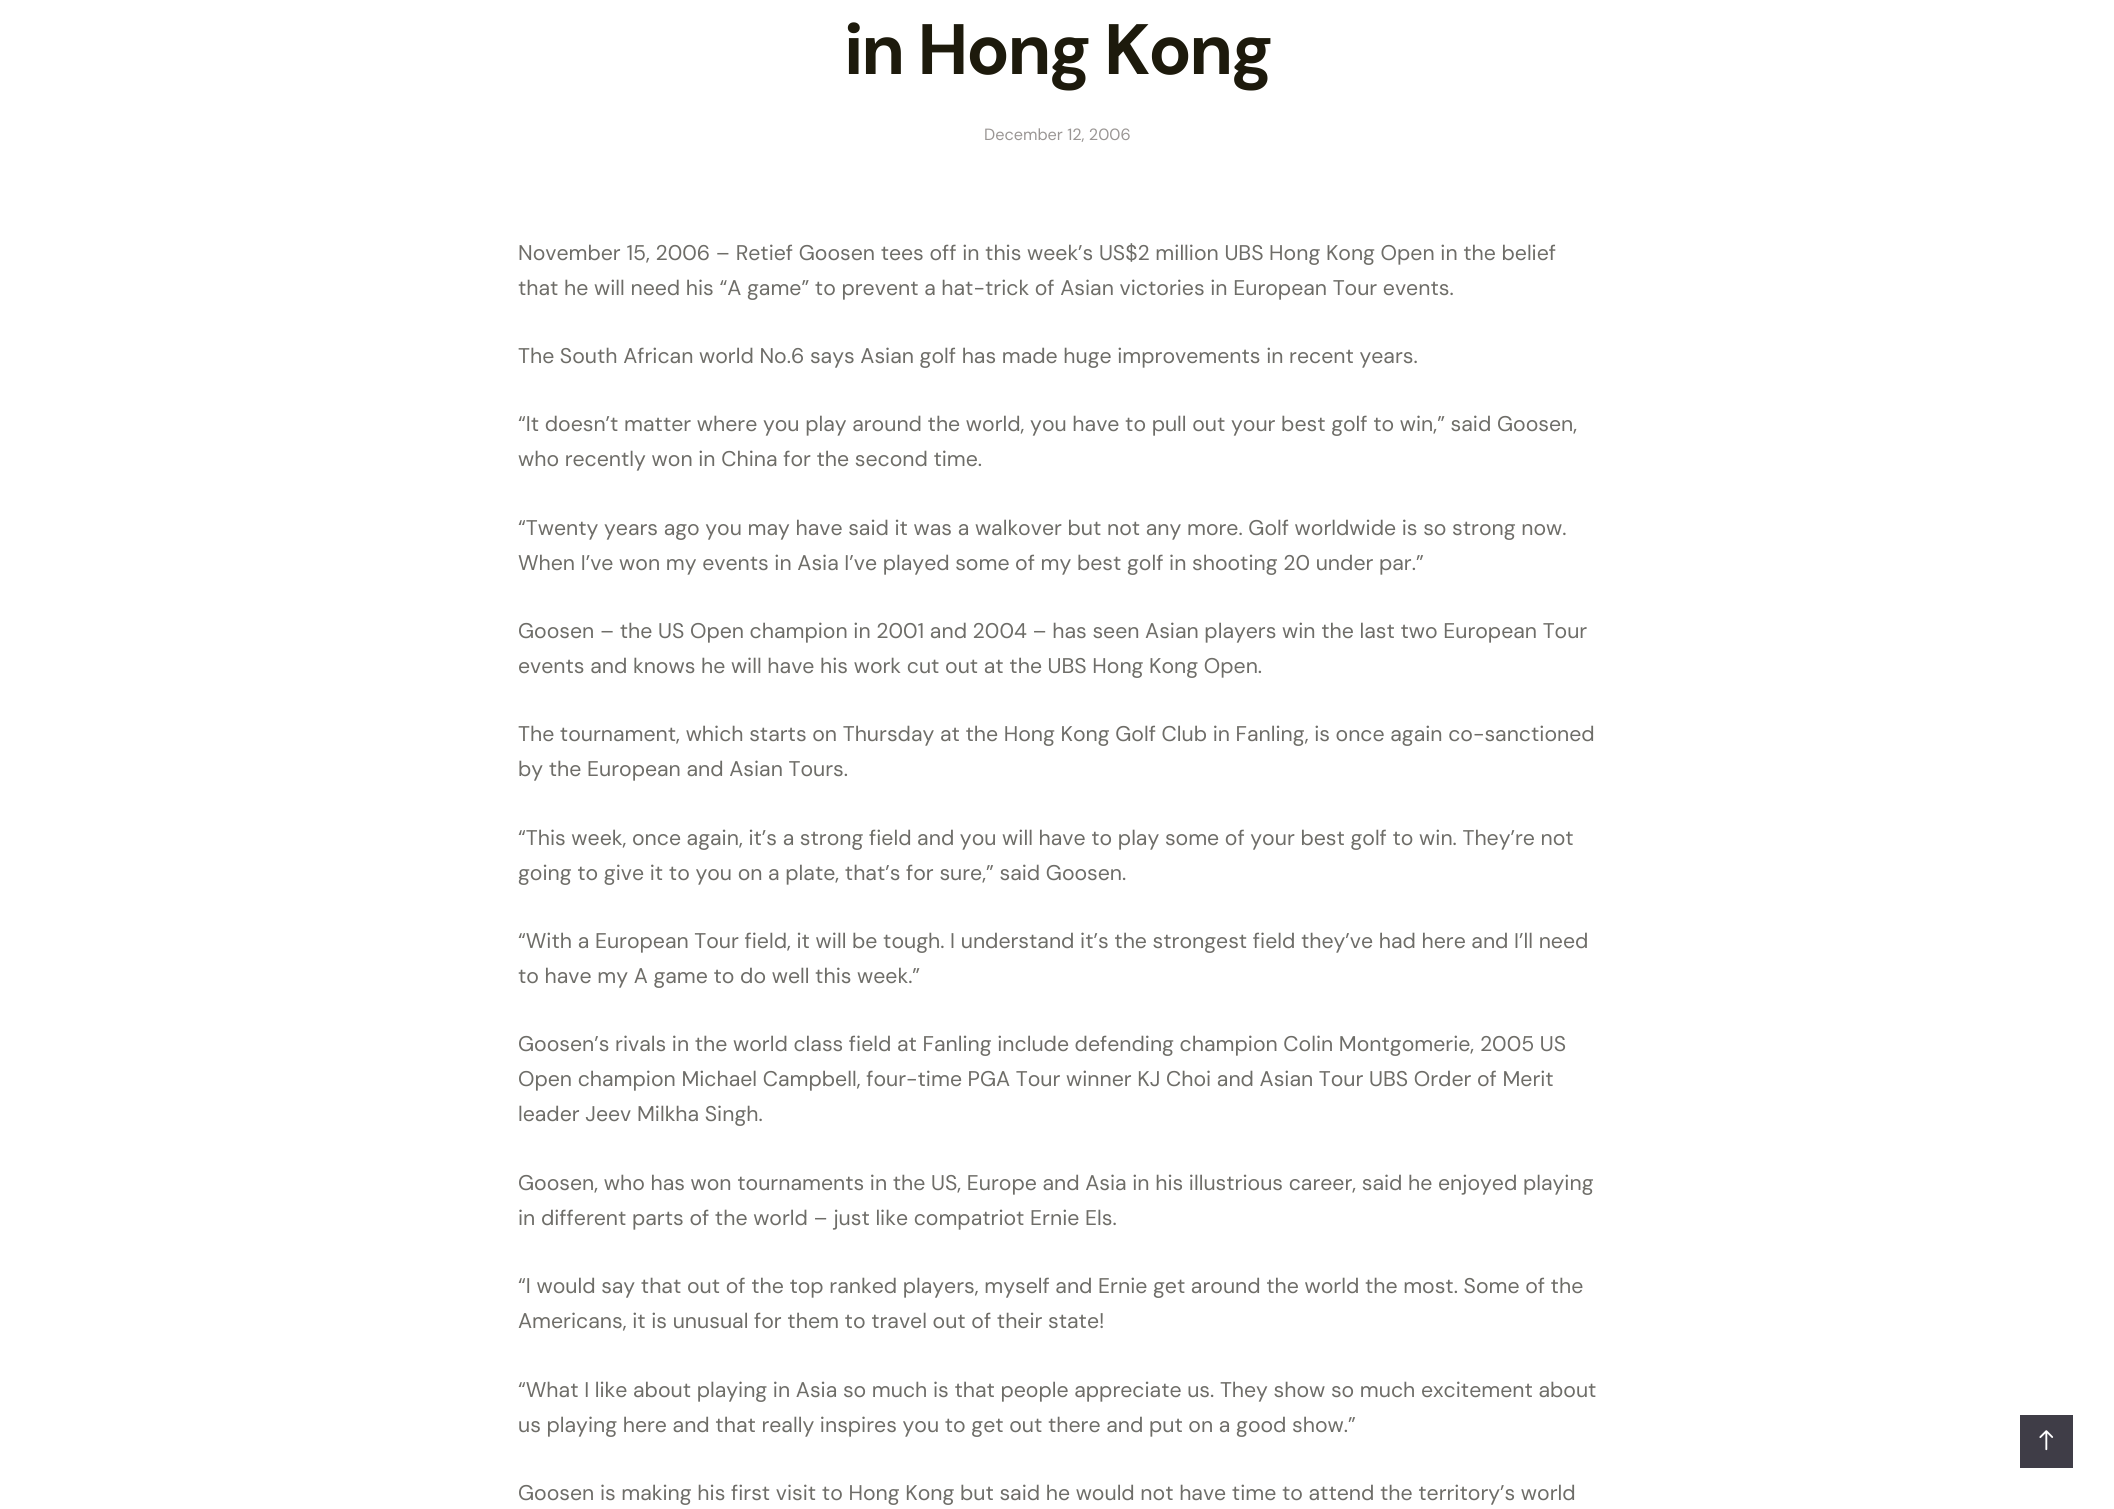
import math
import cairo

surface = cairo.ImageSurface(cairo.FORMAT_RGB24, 2114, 1509)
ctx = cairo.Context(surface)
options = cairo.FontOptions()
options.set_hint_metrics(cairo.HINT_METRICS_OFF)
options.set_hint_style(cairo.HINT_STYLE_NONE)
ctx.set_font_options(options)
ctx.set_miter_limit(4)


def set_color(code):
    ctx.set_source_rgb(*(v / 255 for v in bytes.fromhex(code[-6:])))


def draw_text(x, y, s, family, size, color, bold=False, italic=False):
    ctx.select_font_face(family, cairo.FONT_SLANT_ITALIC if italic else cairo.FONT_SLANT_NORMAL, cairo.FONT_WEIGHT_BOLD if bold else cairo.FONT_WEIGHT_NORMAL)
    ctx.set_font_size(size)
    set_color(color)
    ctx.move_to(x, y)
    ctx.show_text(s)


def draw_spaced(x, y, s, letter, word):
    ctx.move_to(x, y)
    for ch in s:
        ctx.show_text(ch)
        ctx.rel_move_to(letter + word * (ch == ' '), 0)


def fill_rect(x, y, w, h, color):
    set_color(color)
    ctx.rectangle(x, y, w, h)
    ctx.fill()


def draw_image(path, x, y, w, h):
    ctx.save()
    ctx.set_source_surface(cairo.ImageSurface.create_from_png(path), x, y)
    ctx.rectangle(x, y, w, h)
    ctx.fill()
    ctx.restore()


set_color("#ffffff")
ctx.paint()
ctx.select_font_face("DM Sans", cairo.FONT_SLANT_NORMAL, cairo.FONT_WEIGHT_BOLD)
ctx.set_font_size(71.25)
set_color("#1d1a0c")
draw_spaced(844, 74, "in Hong Kong", -2.25, 0)
draw_text(984, 140, "December 12, 2006", "DM Sans", 16.25, "#9a9694")
draw_text(518, 260, "November 15, 2006 – Retief Goosen tees off in this week’s US$2 million UBS Hong Kong Open in the belief", "DM Sans", 21.25, "#6e6d68")
draw_text(518, 295, "that he will need his “A game” to prevent a hat-trick of Asian victories in European Tour events.", "DM Sans", 21.25, "#6e6d68")
draw_text(518, 363, "The South African world No.6 says Asian golf has made huge improvements in recent years.", "DM Sans", 21.25, "#6e6d68")
draw_text(518, 431, "“It doesn’t matter where you play around the world, you have to pull out your best golf to win,” said Goosen,", "DM Sans", 21.25, "#6e6d68")
draw_text(518, 466, "who recently won in China for the second time.", "DM Sans", 21.25, "#6e6d68")
draw_text(518, 535, "“Twenty years ago you may have said it was a walkover but not any more. Golf worldwide is so strong now.", "DM Sans", 21.25, "#6e6d68")
draw_text(518, 570, "When I’ve won my events in Asia I’ve played some of my best golf in shooting 20 under par.”", "DM Sans", 21.25, "#6e6d68")
draw_text(518, 638, "Goosen – the US Open champion in 2001 and 2004 – has seen Asian players win the last two European Tour", "DM Sans", 21.25, "#6e6d68")
draw_text(518, 673, "events and knows he will have his work cut out at the UBS Hong Kong Open.", "DM Sans", 21.25, "#6e6d68")
draw_text(518, 741, "The tournament, which starts on Thursday at the Hong Kong Golf Club in Fanling, is once again co-sanctioned", "DM Sans", 21.25, "#6e6d68")
draw_text(518, 776, "by the European and Asian Tours.", "DM Sans", 21.25, "#6e6d68")
draw_text(518, 845, "“This week, once again, it’s a strong field and you will have to play some of your best golf to win. They’re not", "DM Sans", 21.25, "#6e6d68")
draw_text(518, 880, "going to give it to you on a plate, that’s for sure,” said Goosen.", "DM Sans", 21.25, "#6e6d68")
draw_text(518, 948, "“With a European Tour field, it will be tough. I understand it’s the strongest field they’ve had here and I’ll need", "DM Sans", 21.25, "#6e6d68")
draw_text(518, 983, "to have my A game to do well this week.”", "DM Sans", 21.25, "#6e6d68")
draw_text(518, 1051, "Goosen’s rivals in the world class field at Fanling include defending champion Colin Montgomerie, 2005 US", "DM Sans", 21.25, "#6e6d68")
draw_text(518, 1086, "Open champion Michael Campbell, four-time PGA Tour winner KJ Choi and Asian Tour UBS Order of Merit", "DM Sans", 21.25, "#6e6d68")
draw_text(518, 1121, "leader Jeev Milkha Singh.", "DM Sans", 21.25, "#6e6d68")
draw_text(518, 1190, "Goosen, who has won tournaments in the US, Europe and Asia in his illustrious career, said he enjoyed playing", "DM Sans", 21.25, "#6e6d68")
draw_text(518, 1225, "in different parts of the world – just like compatriot Ernie Els.", "DM Sans", 21.25, "#6e6d68")
draw_text(518, 1293, "“I would say that out of the top ranked players, myself and Ernie get around the world the most. Some of the", "DM Sans", 21.25, "#6e6d68")
draw_text(518, 1328, "Americans, it is unusual for them to travel out of their state!", "DM Sans", 21.25, "#6e6d68")
draw_text(518, 1397, "“What I like about playing in Asia so much is that people appreciate us. They show so much excitement about", "DM Sans", 21.25, "#6e6d68")
draw_text(518, 1432, "us playing here and that really inspires you to get out there and put on a good show.”", "DM Sans", 21.25, "#6e6d68")
draw_text(518, 1500, "Goosen is making his first visit to Hong Kong but said he would not have time to attend the territory’s world", "DM Sans", 21.25, "#6e6d68")
fill_rect(2020, 1415, 53, 53, "#3f3d47")
draw_image("assets/img1.png", 2039, 1430, 15, 21)
surface.write_to_png("output.png")
